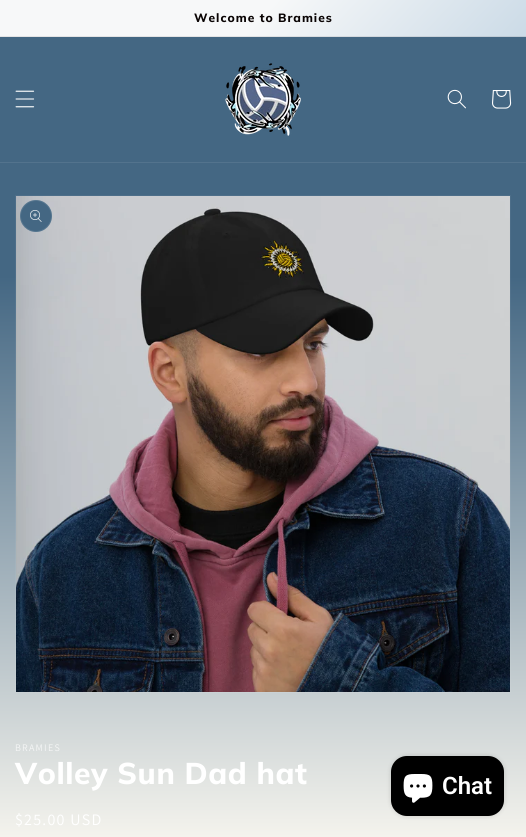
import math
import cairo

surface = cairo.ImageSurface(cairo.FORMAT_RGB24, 526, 837)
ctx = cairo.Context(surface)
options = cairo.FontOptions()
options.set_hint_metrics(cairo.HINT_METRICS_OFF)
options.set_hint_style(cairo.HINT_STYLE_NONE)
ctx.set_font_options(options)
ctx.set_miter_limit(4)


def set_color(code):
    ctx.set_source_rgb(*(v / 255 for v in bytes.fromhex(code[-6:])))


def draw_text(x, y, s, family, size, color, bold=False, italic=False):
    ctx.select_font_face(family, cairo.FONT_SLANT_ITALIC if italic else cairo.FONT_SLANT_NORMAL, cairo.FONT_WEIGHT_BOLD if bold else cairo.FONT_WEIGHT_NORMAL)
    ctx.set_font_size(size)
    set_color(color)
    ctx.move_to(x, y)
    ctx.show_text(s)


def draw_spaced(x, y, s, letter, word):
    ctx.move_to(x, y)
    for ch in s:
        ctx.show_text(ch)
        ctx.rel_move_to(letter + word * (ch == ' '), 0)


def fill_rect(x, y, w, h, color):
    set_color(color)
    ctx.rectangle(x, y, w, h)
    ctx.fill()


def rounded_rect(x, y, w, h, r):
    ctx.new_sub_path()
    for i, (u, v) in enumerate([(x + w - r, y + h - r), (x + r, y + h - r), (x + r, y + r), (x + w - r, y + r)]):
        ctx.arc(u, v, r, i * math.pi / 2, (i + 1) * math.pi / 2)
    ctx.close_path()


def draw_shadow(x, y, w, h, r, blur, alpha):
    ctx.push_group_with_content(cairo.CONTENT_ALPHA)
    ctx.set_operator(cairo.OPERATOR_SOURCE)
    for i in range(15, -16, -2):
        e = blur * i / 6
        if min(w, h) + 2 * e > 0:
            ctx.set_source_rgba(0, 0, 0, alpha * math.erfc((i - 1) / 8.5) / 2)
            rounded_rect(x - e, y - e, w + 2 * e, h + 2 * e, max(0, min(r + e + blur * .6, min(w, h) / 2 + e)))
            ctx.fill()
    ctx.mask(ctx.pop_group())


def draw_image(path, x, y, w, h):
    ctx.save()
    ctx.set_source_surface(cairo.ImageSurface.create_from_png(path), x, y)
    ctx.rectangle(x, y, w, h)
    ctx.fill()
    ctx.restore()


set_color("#ffffff")
ctx.paint()
gradient = cairo.LinearGradient(263, 0, 263, 837)
gradient.add_color_stop_rgba(0.33, 0.267, 0.404, 0.514, 1)
gradient.add_color_stop_rgba(1, 0.957, 0.953, 0.929, 1)
ctx.set_source(gradient)
ctx.rectangle(0, 37, 526, 800)
ctx.fill()
gradient = cairo.LinearGradient(-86, 93, 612, 744)
gradient.add_color_stop_rgba(0.21, 0.969, 0.973, 0.976, 1)
gradient.add_color_stop_rgba(0.76, 0.537, 0.682, 0.796, 1)
gradient.add_color_stop_rgba(0.87, 0.839, 0.824, 0.745, 1)
ctx.set_source(gradient)
ctx.rectangle(0, 0, 526, 36)
ctx.fill()
gradient = cairo.LinearGradient(-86, 93, 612, 744)
gradient.add_color_stop_rgba(0.21, 0.894, 0.894, 0.898, 1)
gradient.add_color_stop_rgba(0.76, 0.498, 0.627, 0.733, 1)
gradient.add_color_stop_rgba(0.87, 0.776, 0.761, 0.686, 1)
ctx.set_source(gradient)
ctx.rectangle(0, 36, 526, 1)
ctx.fill()
ctx.select_font_face("Muli ExtraBold")
ctx.set_font_size(12)
set_color("#0a0404")
draw_spaced(194, 22, "Welcome to Bramies", 1, 0)
fill_rect(0, 162, 526, 1, "#53738d")
draw_image("assets/img1.png", 15, 90, 20, 18)
draw_image("assets/img2.png", 225, 63, 76, 73)
draw_image("assets/img3.png", 447, 89, 19, 20)
draw_image("assets/img4.png", 492, 90, 20, 19)
ctx.rectangle(15.5, 195.5, 495, 497)
ctx.set_source_rgba(1, 1, 1, 0.05)
ctx.set_line_width(1)
ctx.stroke()
draw_image("assets/img5.png", 16, 196, 494, 496)
set_color("#446783")
ctx.arc(36, 216, 16, 0, 2 * math.pi)
ctx.fill()
ctx.arc(36, 216, 15.5, 0, 2 * math.pi)
ctx.set_source_rgba(1, 1, 1, 0.1)
ctx.stroke()
draw_image("assets/img6.png", 30, 210, 12, 12)
ctx.select_font_face("Assistant")
ctx.set_font_size(10)
set_color("#f5f6f6")
draw_spaced(15, 751, "BRAMIES", 1.25, 0)
ctx.select_font_face("Muli ExtraBold")
ctx.set_font_size(30)
set_color("#ffffff")
draw_spaced(15, 784, "Volley Sun Dad hat", 0.6, 0)
ctx.select_font_face("Assistant")
ctx.set_font_size(16)
draw_spaced(15, 825, "$25.00 USD", 1.25, 0)
set_color("#000000")
draw_shadow(391, 756, 113, 60, 16, 2.5, 0.15)
set_color("#000000")
rounded_rect(391, 756, 113, 60, 16)
ctx.fill()
draw_image("assets/img7.png", 403, 774, 30, 29)
draw_text(442, 794, "Chat", "Roboto SemiBold", 24, "#ffffff")
surface.write_to_png("output.png")
